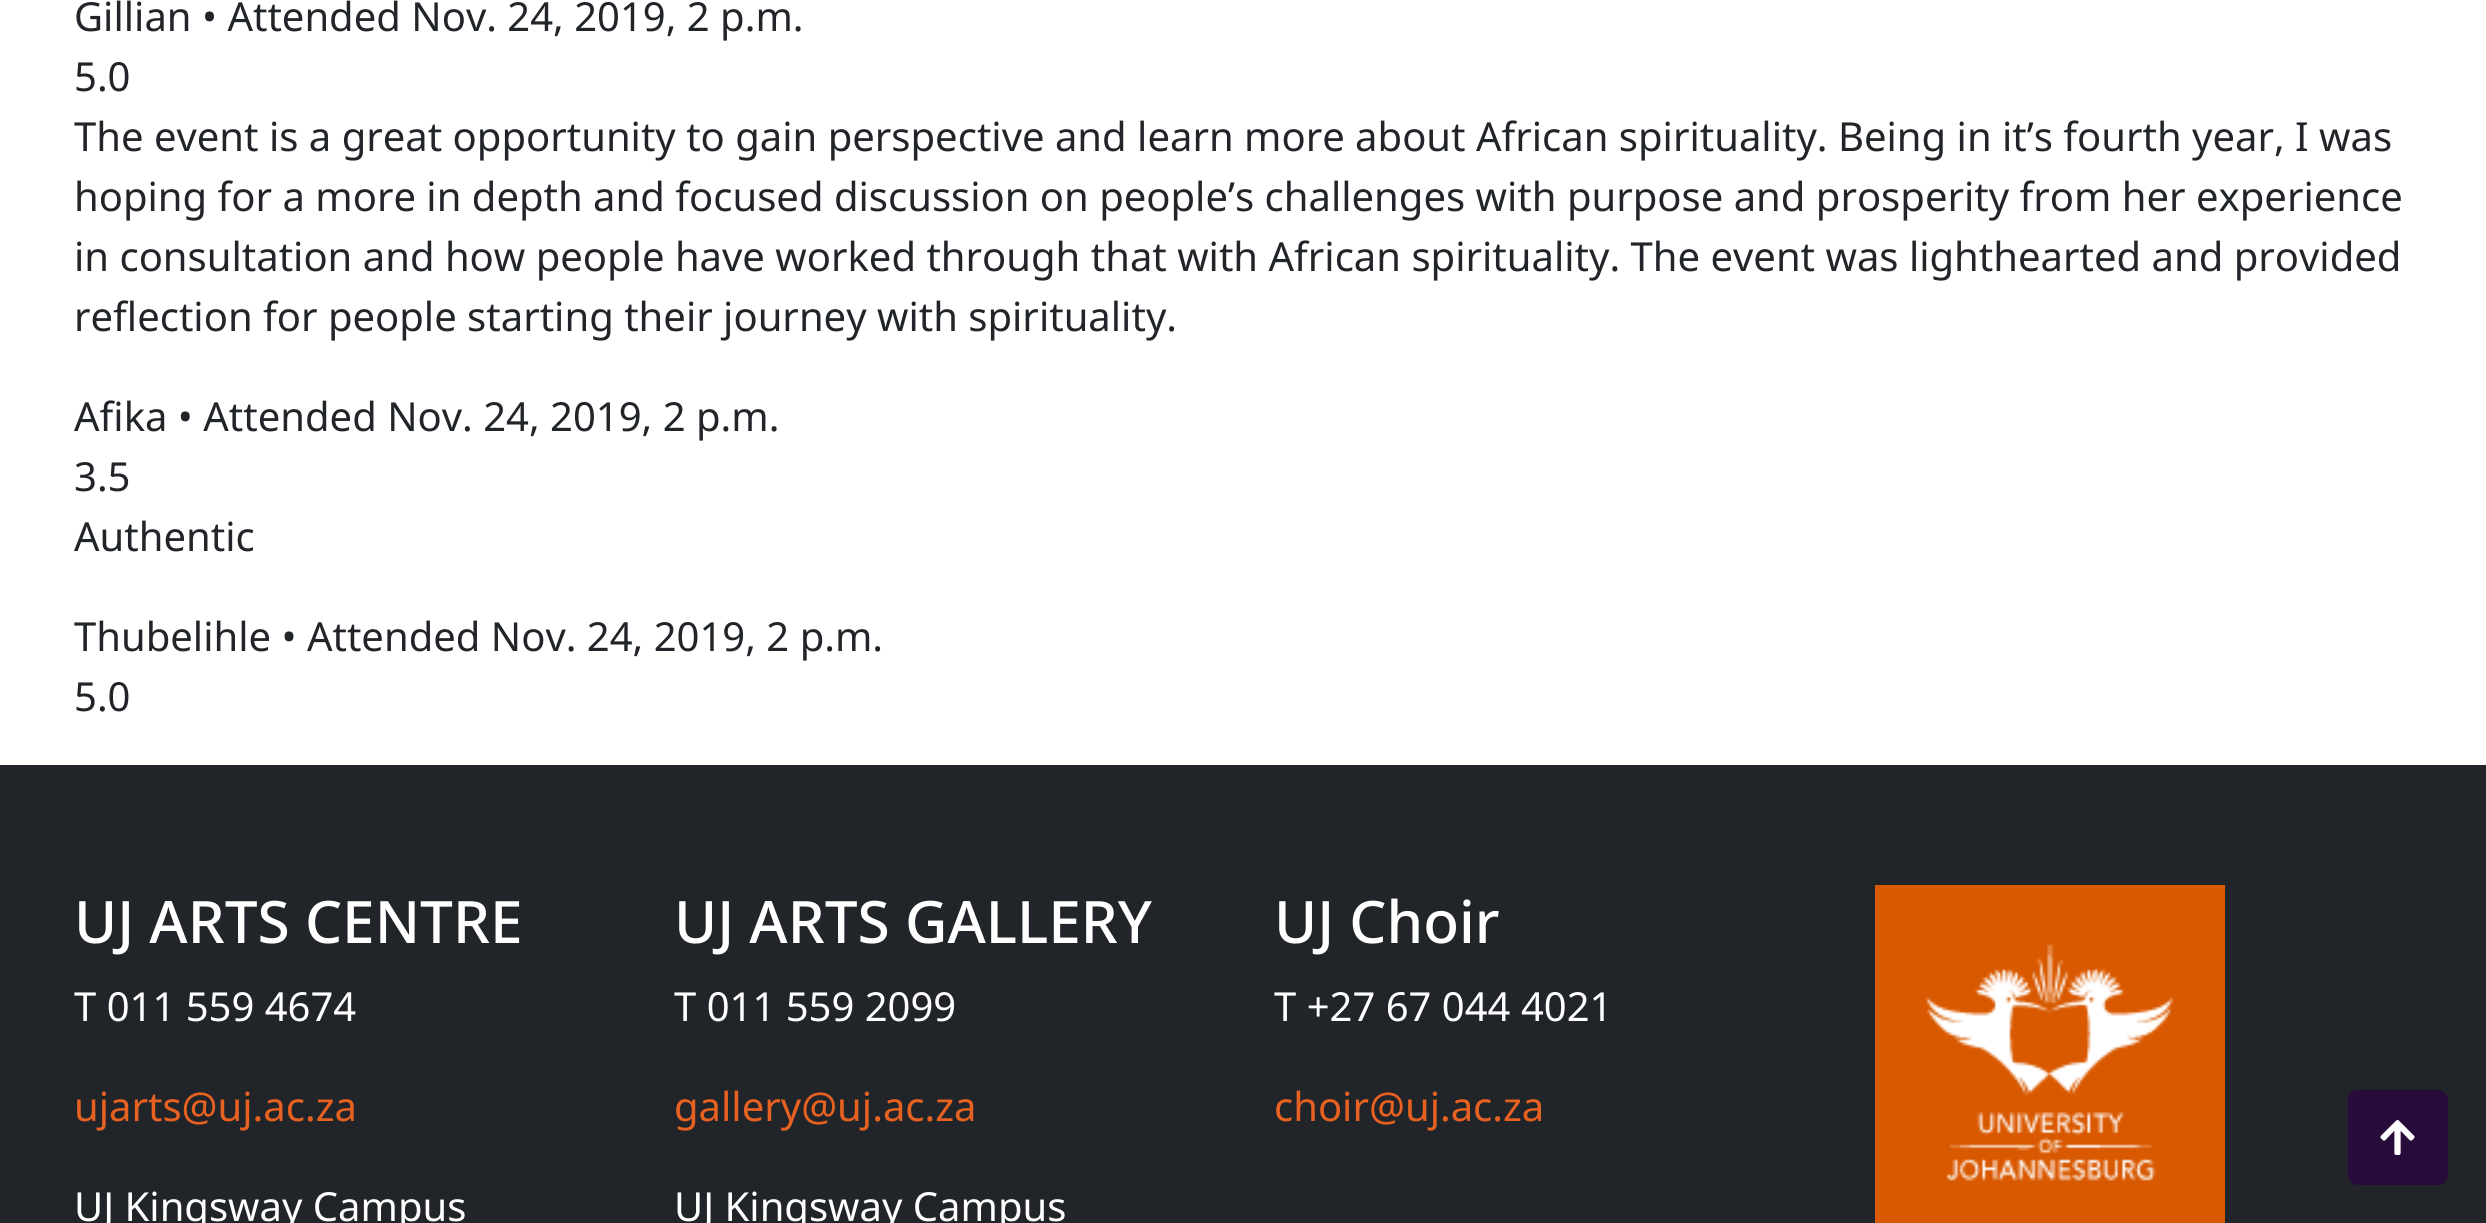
import math
import cairo

surface = cairo.ImageSurface(cairo.FORMAT_RGB24, 2486, 1223)
ctx = cairo.Context(surface)
options = cairo.FontOptions()
options.set_hint_metrics(cairo.HINT_METRICS_OFF)
options.set_hint_style(cairo.HINT_STYLE_NONE)
ctx.set_font_options(options)
ctx.set_miter_limit(4)


def set_color(code):
    ctx.set_source_rgb(*(v / 255 for v in bytes.fromhex(code[-6:])))


def draw_text(x, y, s, family, size, color, bold=False, italic=False):
    ctx.select_font_face(family, cairo.FONT_SLANT_ITALIC if italic else cairo.FONT_SLANT_NORMAL, cairo.FONT_WEIGHT_BOLD if bold else cairo.FONT_WEIGHT_NORMAL)
    ctx.set_font_size(size)
    set_color(color)
    ctx.move_to(x, y)
    ctx.show_text(s)


def fill_rect(x, y, w, h, color):
    set_color(color)
    ctx.rectangle(x, y, w, h)
    ctx.fill()


def rounded_rect(x, y, w, h, r):
    ctx.new_sub_path()
    for i, (u, v) in enumerate([(x + w - r, y + h - r), (x + r, y + h - r), (x + r, y + r), (x + w - r, y + r)]):
        ctx.arc(u, v, r, i * math.pi / 2, (i + 1) * math.pi / 2)
    ctx.close_path()


def draw_image(path, x, y, w, h):
    ctx.save()
    ctx.set_source_surface(cairo.ImageSurface.create_from_png(path), x, y)
    ctx.rectangle(x, y, w, h)
    ctx.fill()
    ctx.restore()


set_color("#ffffff")
ctx.paint()
draw_text(74, 31, "Gillian • Attended Nov. 24, 2019, 2 p.m.", "Noto Sans", 40, "#212529")
draw_text(74, 91, "5.0", "Noto Sans", 40, "#212529")
draw_text(74, 151, "The event is a great opportunity to gain perspective and learn more about African spirituality. Being in it’s fourth year, I was", "Noto Sans", 40, "#212529")
draw_text(74, 211, "hoping for a more in depth and focused discussion on people’s challenges with purpose and prosperity from her experience", "Noto Sans", 40, "#212529")
draw_text(74, 271, "in consultation and how people have worked through that with African spirituality. The event was lighthearted and provided", "Noto Sans", 40, "#212529")
draw_text(74, 331, "reflection for people starting their journey with spirituality.", "Noto Sans", 40, "#212529")
draw_text(74, 431, "Afika • Attended Nov. 24, 2019, 2 p.m.", "Noto Sans", 40, "#212529")
draw_text(74, 491, "3.5", "Noto Sans", 40, "#212529")
draw_text(74, 551, "Authentic", "Noto Sans", 40, "#212529")
draw_text(74, 651, "Thubelihle • Attended Nov. 24, 2019, 2 p.m.", "Noto Sans", 40, "#212529")
draw_text(74, 711, "5.0", "Noto Sans", 40, "#212529")
fill_rect(0, 765, 2486, 458, "#212529")
draw_text(74, 943, "UJ ARTS CENTRE", "Noto Sans Medium", 58.5, "#ffffff")
draw_text(74, 1021, "T 011 559 4674", "Noto Sans", 40, "#ffffff")
draw_text(74, 1121, "ujarts@uj.ac.za", "Noto Sans", 40, "#e76121")
draw_text(74, 1221, "UJ Kingsway Campus", "Noto Sans", 40, "#ffffff")
draw_text(674, 943, "UJ ARTS GALLERY", "Noto Sans Medium", 58.5, "#ffffff")
draw_text(674, 1021, "T 011 559 2099", "Noto Sans", 40, "#ffffff")
draw_text(674, 1121, "gallery@uj.ac.za", "Noto Sans", 40, "#e76121")
draw_text(674, 1221, "UJ Kingsway Campus", "Noto Sans", 40, "#ffffff")
draw_text(1274, 943, "UJ Choir", "Noto Sans Medium", 58.5, "#ffffff")
draw_text(1274, 1021, "T +27 67 044 4021", "Noto Sans", 40, "#ffffff")
draw_text(1274, 1121, "choir@uj.ac.za", "Noto Sans", 40, "#e76121")
draw_image("assets/img1.png", 1875, 885, 350, 338)
set_color("#270c3b")
rounded_rect(2349.5, 1091.5, 97, 92, 8.5)
ctx.fill_preserve()
ctx.set_line_width(3)
ctx.stroke()
draw_image("assets/img2.png", 2380, 1120, 35, 35)
surface.write_to_png("output.png")
